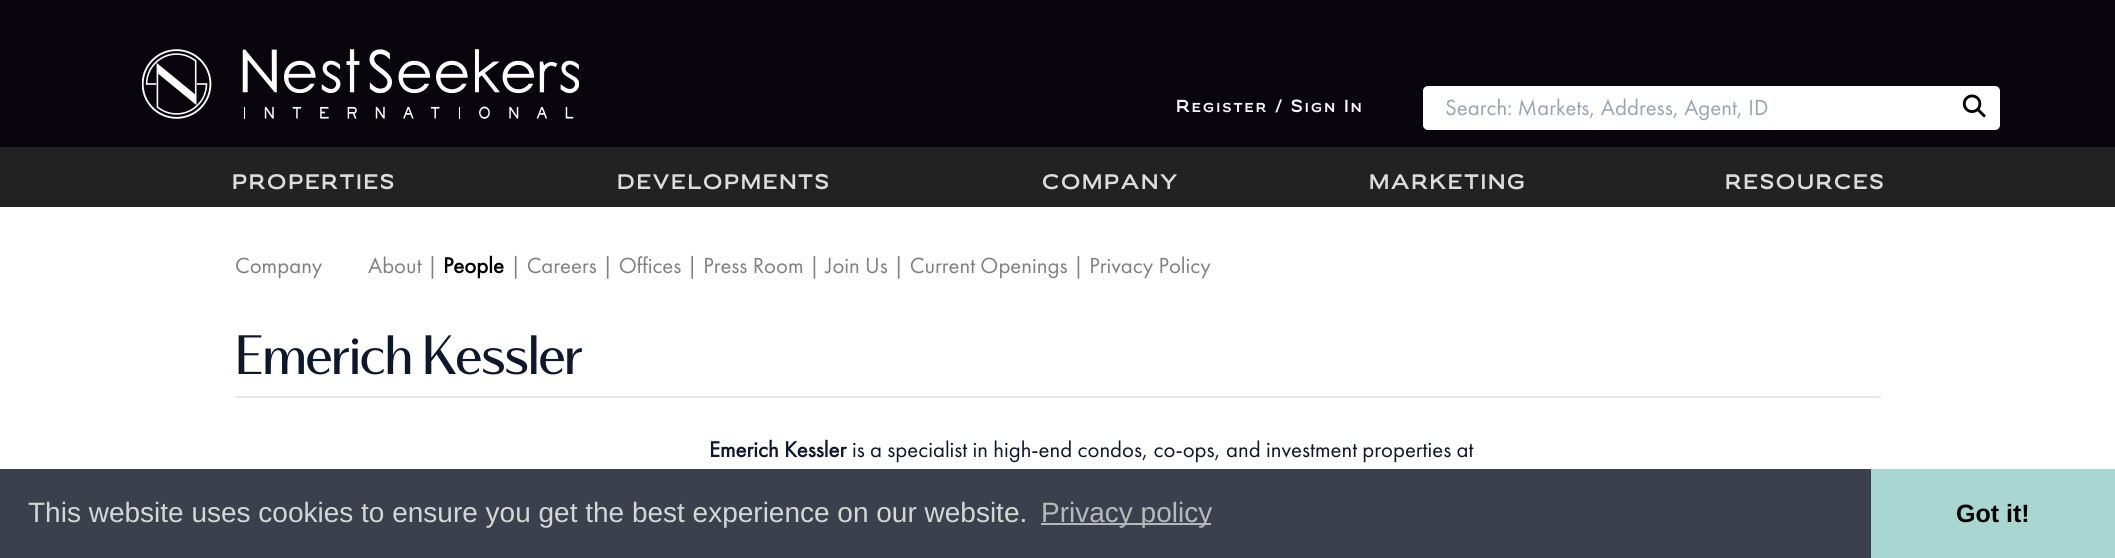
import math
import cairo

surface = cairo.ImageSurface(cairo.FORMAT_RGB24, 2115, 558)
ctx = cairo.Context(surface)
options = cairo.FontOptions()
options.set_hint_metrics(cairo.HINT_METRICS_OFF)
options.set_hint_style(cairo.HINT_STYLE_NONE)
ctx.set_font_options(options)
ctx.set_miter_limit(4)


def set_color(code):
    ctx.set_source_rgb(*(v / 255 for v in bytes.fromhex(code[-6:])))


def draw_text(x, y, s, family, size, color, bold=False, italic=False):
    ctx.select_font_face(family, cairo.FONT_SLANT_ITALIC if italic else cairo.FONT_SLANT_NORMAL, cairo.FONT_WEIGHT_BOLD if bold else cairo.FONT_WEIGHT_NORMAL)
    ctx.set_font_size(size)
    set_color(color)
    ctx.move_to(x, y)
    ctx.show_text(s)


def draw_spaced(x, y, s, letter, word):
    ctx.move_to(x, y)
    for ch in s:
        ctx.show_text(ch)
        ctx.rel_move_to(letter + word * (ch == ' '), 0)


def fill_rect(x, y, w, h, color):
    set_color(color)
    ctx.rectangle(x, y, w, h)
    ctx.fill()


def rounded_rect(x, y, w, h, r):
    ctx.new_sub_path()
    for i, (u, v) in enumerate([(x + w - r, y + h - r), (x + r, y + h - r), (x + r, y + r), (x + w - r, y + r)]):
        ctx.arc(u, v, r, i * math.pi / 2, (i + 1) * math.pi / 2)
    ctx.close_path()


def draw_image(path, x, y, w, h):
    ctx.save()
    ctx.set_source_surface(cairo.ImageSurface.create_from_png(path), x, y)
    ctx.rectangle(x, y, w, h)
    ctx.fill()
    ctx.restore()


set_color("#ffffff")
ctx.paint()
fill_rect(0, 0, 2115, 147, "#09050c")
draw_image("assets/img1.png", 142, 49, 437, 70)
ctx.select_font_face("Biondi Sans")
ctx.set_font_size(17)
set_color("#f3f4f6")
draw_spaced(1176, 112, "Register / Sign In", 1.75, 0)
set_color("#ffffff")
rounded_rect(1423, 86, 577, 44, 5)
ctx.fill()
draw_text(1445, 115, "Search: Markets, Address, Agent, ID", "Futura PT", 22.75, "#9ca3af")
draw_image("assets/img2.png", 1962, 94, 24, 24)
fill_rect(0, 147, 2115, 60, "#222222")
ctx.select_font_face("Biondi Sans")
ctx.set_font_size(20.5)
set_color("#dddddd")
draw_spaced(232, 189, "PROPERTIES", 1.75, 0)
draw_spaced(617, 189, "DEVELOPMENTS", 1.75, 0)
draw_spaced(1042, 189, "COMPANY", 1.75, 0)
draw_spaced(1369, 189, "MARKETING", 1.75, 0)
draw_spaced(1725, 189, "RESOURCES", 1.75, 0)
draw_text(235, 273, "Company", "Futura PT", 22.75, "#808080")
draw_text(368, 273, "About |", "Futura PT", 22.75, "#808080")
draw_text(443, 273, "People", "Futura PT", 22.75, "#000000", bold=True)
draw_text(510, 273, "| Careers | Offices | Press Room | Join Us | Current Openings | Privacy Policy", "Futura PT", 22.75, "#808080")
fill_rect(236, 396, 1645, 2, "#eee9e9")
ctx.select_font_face("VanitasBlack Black")
ctx.set_font_size(57)
set_color("#0f172a")
draw_spaced(235, 374, "Emerich Kessler", -2.25, 0)
draw_text(709, 457, "Emerich Kessler", "Futura PT", 22.75, "#0f172a", bold=True)
draw_text(852, 457, "is a specialist in high-end condos, co-ops, and investment properties at", "Futura PT", 22.75, "#0f172a")
fill_rect(0, 469, 1871, 89, "#3c404d")
draw_text(28, 522, "This website uses cookies to ensure you get the best experience on our website.", "Liberation Sans", 28, "#d6d6d6")
fill_rect(1041, 523, 170, 2, "#b7b8bb")
draw_text(1041, 522, "Privacy policy", "Liberation Sans", 28, "#b7b8bb")
fill_rect(1871, 469, 244, 89, "#a9d6d1")
draw_text(1956, 522, "Got it!", "Liberation Sans", 25, "#000000", bold=True)
surface.write_to_png("output.png")
